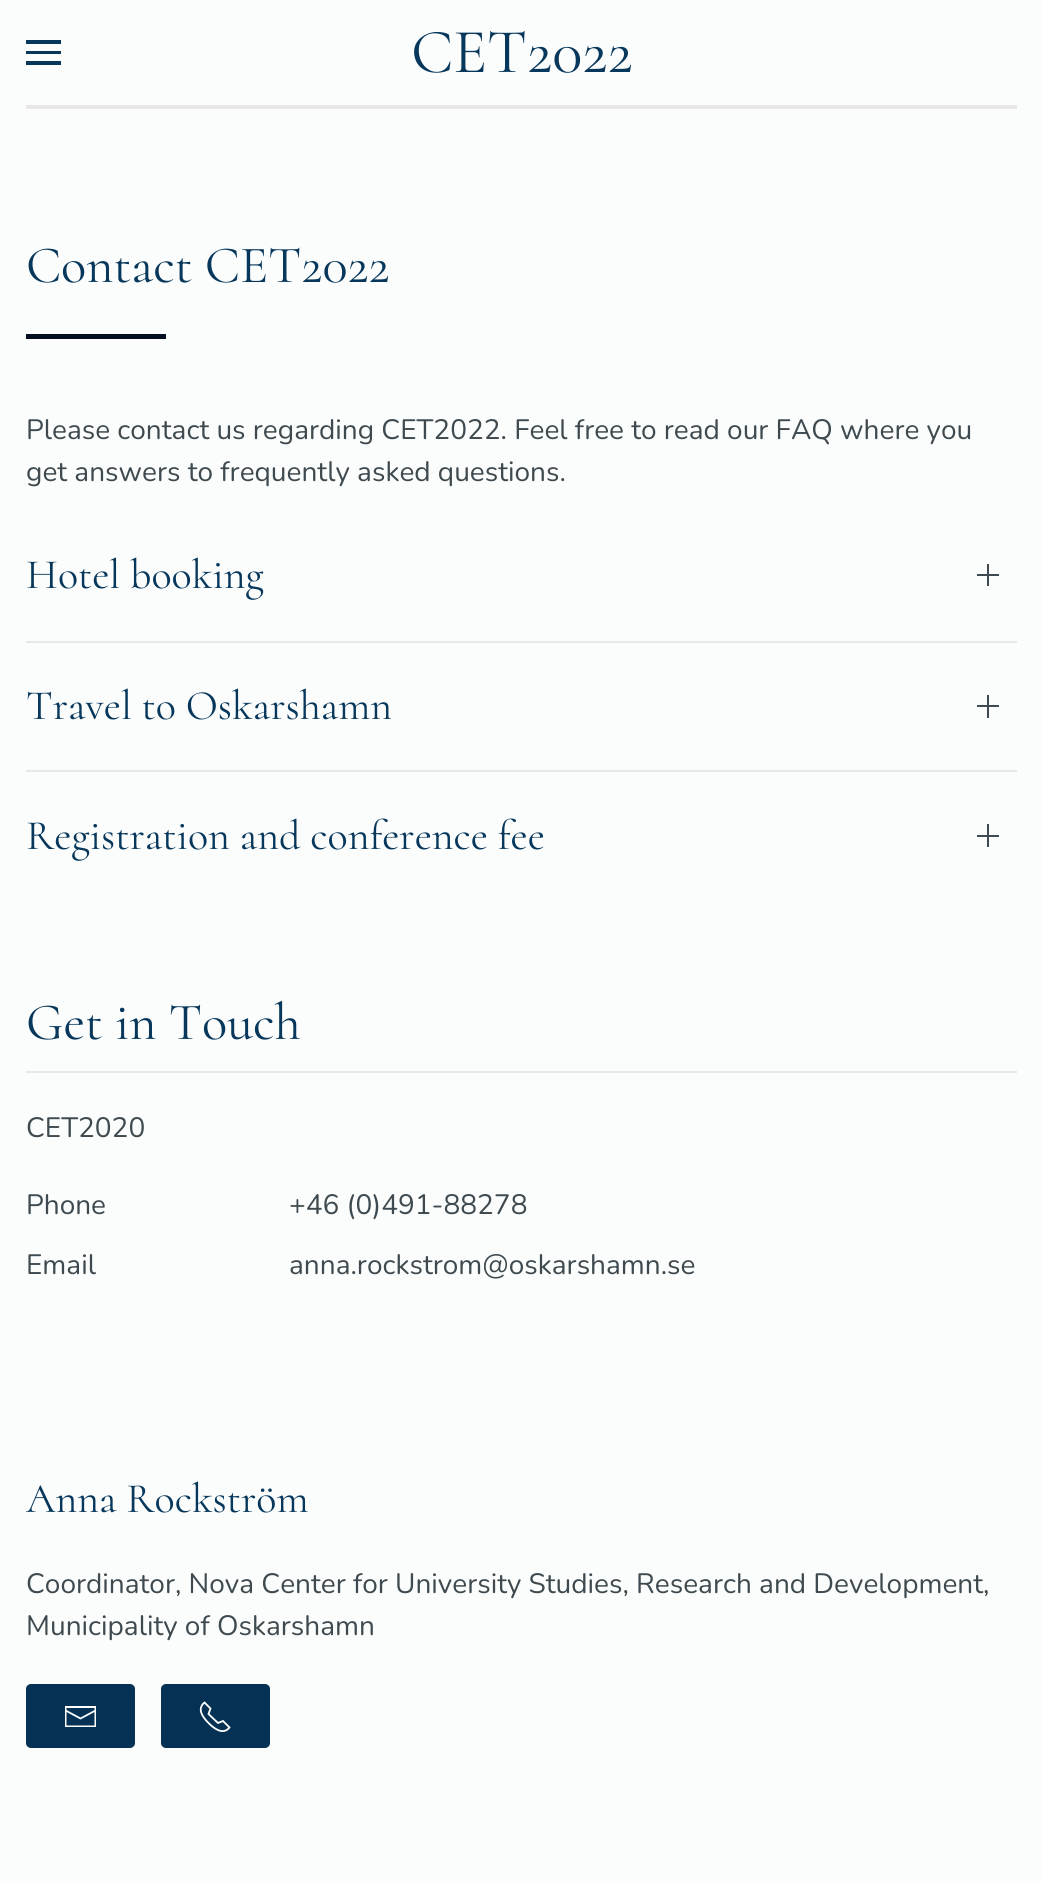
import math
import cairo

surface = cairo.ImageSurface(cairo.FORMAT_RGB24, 1042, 1881)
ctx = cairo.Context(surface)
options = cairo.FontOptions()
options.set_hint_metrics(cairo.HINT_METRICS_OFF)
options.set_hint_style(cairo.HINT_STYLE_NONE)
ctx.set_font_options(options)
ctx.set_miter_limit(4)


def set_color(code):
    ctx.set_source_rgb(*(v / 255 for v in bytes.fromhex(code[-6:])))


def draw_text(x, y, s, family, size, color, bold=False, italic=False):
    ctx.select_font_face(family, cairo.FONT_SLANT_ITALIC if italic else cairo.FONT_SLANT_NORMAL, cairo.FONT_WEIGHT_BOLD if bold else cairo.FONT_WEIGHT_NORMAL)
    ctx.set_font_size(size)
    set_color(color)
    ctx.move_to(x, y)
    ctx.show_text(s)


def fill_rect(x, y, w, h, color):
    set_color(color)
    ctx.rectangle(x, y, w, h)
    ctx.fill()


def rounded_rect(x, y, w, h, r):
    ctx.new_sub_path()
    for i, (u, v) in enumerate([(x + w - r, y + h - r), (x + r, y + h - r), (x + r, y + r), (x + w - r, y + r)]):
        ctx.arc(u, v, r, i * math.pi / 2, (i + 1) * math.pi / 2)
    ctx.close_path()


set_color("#fbfcfc")
ctx.paint()
fill_rect(26, 105, 991, 4, "#e8e8e8")
fill_rect(26, 40, 35, 4, "#07385c")
fill_rect(26, 51, 35, 3, "#07385c")
fill_rect(26, 61, 35, 4, "#07385c")
draw_text(411, 72, "CET2022", "Cormorant Light", 63, "#07385c")
draw_text(26, 282, "Contact CET2022", "Cormorant Light", 52.5, "#07385c")
fill_rect(26, 334, 140, 5, "#040f21")
draw_text(26, 439, "Please contact us regarding CET2022. Feel free to read our FAQ where you", "Nunito ExtraLight", 28, "#3e4a4f")
draw_text(26, 481, "get answers to frequently asked questions.", "Nunito ExtraLight", 28, "#3e4a4f")
draw_text(26, 588, "Hotel booking", "Cormorant Light", 42, "#07385c")
fill_rect(977, 574, 22, 2, "#3e4a4f")
fill_rect(987, 564, 2, 22, "#3e4a4f")
fill_rect(26, 641, 991, 2, "#e8e8e8")
draw_text(26, 719, "Travel to Oskarshamn", "Cormorant Light", 42, "#07385c")
fill_rect(977, 705, 22, 2, "#3e4a4f")
fill_rect(987, 695, 2, 23, "#3e4a4f")
fill_rect(26, 770, 991, 2, "#e8e8e8")
draw_text(26, 849, "Registration and conference fee", "Cormorant Light", 42, "#07385c")
fill_rect(977, 835, 22, 2, "#3e4a4f")
fill_rect(987, 824, 2, 23, "#3e4a4f")
fill_rect(26, 1071, 991, 2, "#e8e8e8")
draw_text(26, 1039, "Get in Touch", "Cormorant Light", 52.5, "#07385c")
draw_text(26, 1137, "CET2020", "Nunito ExtraLight", 28, "#3e4a4f")
draw_text(26, 1214, "Phone", "Nunito ExtraLight", 28, "#3e4a4f")
draw_text(289, 1214, "+46 (0)491-88278", "Nunito ExtraLight", 28, "#3e4a4f")
draw_text(26, 1274, "Email", "Nunito ExtraLight", 28, "#3e4a4f")
draw_text(289, 1274, "anna.rockstrom@oskarshamn.se", "Nunito ExtraLight", 28, "#3e4a4f")
draw_text(26, 1512, "Anna Rockström", "Cormorant Light", 42, "#07385c")
draw_text(26, 1593, "Coordinator, Nova Center for University Studies, Research and Development,", "Nunito ExtraLight", 28, "#3e4a4f")
draw_text(26, 1635, "Municipality of Oskarshamn", "Nunito ExtraLight", 28, "#3e4a4f")
set_color("#053254")
rounded_rect(26, 1684, 109, 64, 5)
ctx.fill()
ctx.new_path()
ctx.move_to(65.5, 1710.5)
ctx.line_to(80.5, 1718.5)
ctx.line_to(95.5, 1710.5)
set_color("#ffffff")
ctx.set_line_width(1.8)
ctx.stroke()
ctx.new_path()
ctx.move_to(65, 1706)
ctx.line_to(65, 1727)
ctx.line_to(96, 1727)
ctx.line_to(96, 1706)
ctx.close_path()
ctx.move_to(94.5, 1725.5)
ctx.line_to(66.5, 1725.5)
ctx.line_to(66.5, 1708)
ctx.line_to(94.5, 1708)
ctx.close_path()
ctx.fill()
set_color("#053254")
rounded_rect(161, 1684, 109, 64, 5)
ctx.fill()
ctx.new_path()
ctx.move_to(208.5, 1723)
ctx.curve_to(214, 1728.5, 223, 1735.5, 229.5, 1727.5)
ctx.line_to(223, 1721)
ctx.line_to(218, 1723)
ctx.line_to(208.5, 1714)
ctx.line_to(210.5, 1708.5)
ctx.line_to(204.5, 1702.5)
ctx.curve_to(196.5, 1709, 203, 1717.5, 208.5, 1723)
set_color("#ffffff")
ctx.stroke()
surface.write_to_png("output.png")
